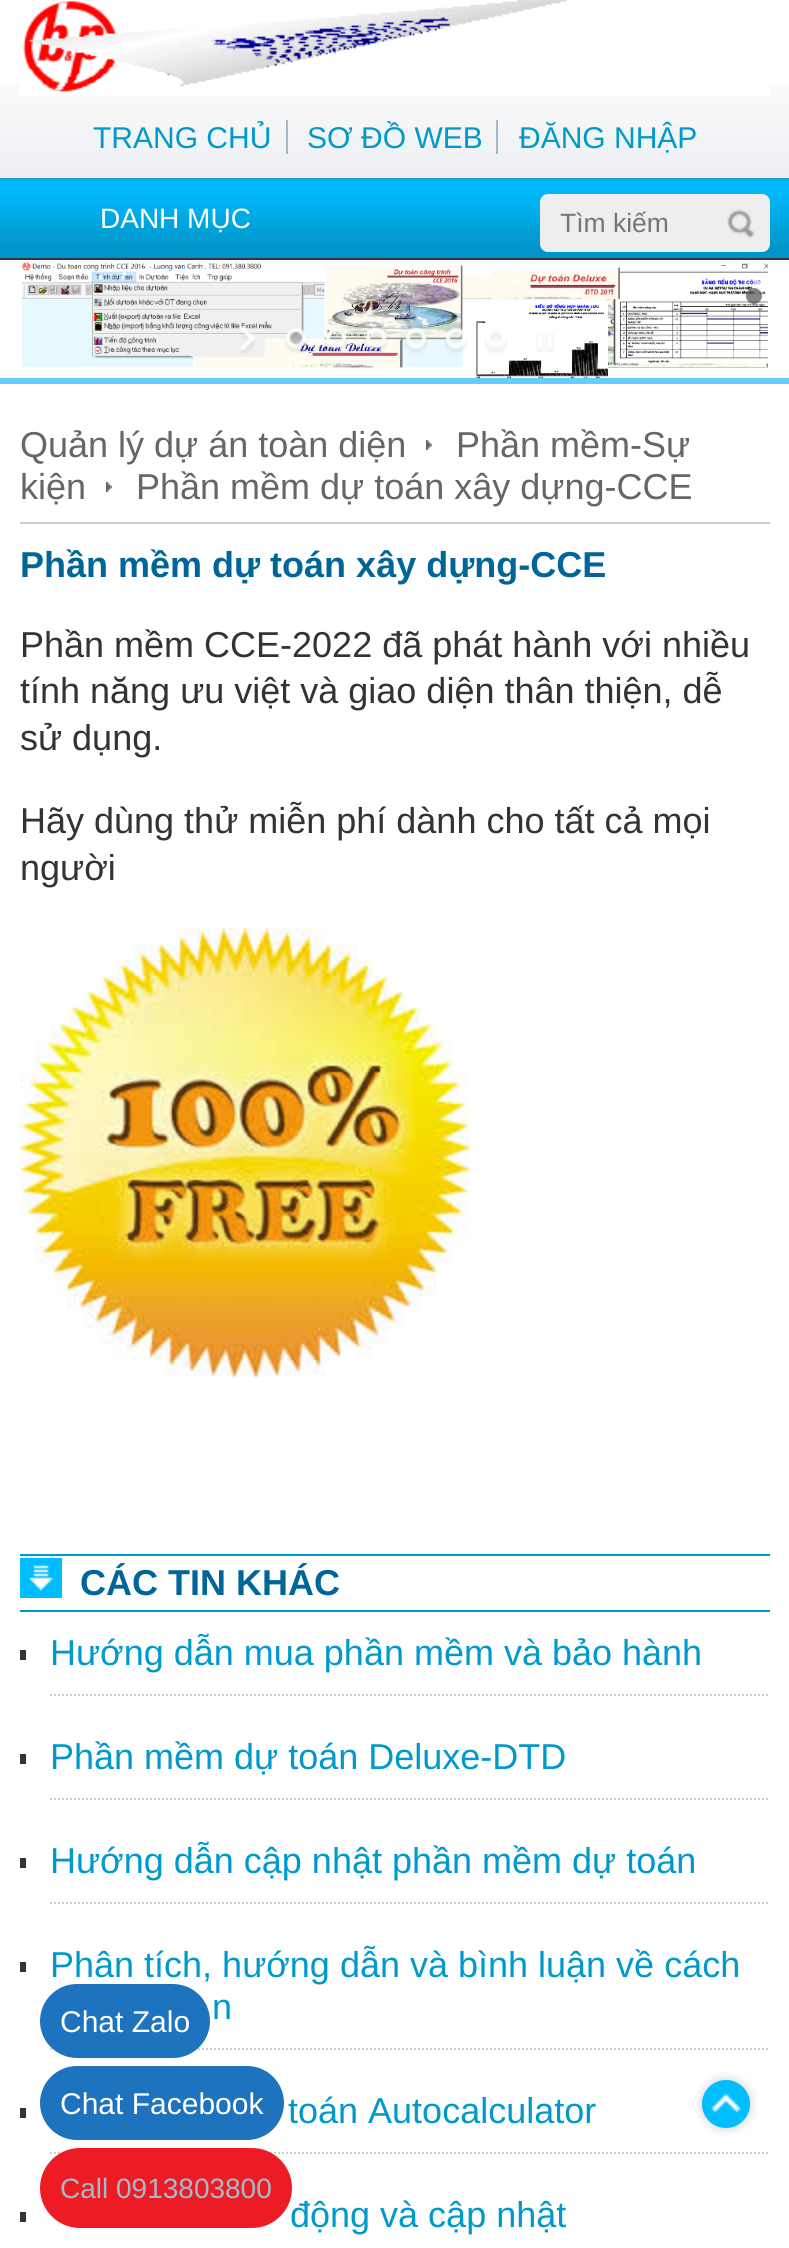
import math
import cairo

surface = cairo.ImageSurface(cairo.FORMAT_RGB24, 789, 2248)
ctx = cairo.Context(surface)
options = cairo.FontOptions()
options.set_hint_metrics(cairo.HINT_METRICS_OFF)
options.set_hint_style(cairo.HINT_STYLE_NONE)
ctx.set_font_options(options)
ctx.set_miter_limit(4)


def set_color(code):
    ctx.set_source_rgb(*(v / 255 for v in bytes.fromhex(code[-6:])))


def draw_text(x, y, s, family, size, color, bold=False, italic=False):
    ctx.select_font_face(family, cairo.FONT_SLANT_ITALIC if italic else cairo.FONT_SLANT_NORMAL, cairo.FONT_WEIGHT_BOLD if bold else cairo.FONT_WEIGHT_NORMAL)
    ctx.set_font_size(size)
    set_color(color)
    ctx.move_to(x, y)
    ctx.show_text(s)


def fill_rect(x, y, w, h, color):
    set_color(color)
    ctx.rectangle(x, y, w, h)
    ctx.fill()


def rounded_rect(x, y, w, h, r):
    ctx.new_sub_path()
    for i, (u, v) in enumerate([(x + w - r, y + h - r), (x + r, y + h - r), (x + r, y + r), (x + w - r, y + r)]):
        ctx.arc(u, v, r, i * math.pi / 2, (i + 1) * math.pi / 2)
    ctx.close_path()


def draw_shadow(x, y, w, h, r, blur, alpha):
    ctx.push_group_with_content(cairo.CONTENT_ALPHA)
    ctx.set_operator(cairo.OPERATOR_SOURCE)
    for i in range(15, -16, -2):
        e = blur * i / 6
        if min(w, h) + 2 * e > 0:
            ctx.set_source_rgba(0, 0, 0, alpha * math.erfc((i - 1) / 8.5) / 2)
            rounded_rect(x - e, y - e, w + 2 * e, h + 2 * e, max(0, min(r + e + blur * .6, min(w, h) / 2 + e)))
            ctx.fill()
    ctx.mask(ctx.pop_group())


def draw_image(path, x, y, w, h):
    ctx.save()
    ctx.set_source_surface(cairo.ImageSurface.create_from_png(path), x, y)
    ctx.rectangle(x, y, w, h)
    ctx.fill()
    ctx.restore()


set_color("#ffffff")
ctx.paint()
draw_image("assets/img1.png", 0, 84, 789, 94)
draw_image("assets/img2.png", 20, 0, 750, 96)
fill_rect(286, 120, 2, 34, "#a4bacb")
draw_text(93, 148, "TRANG CHỦ", "Liberation Sans", 30, "#0099cc")
fill_rect(496, 120, 2, 34, "#a4bacb")
draw_text(307, 148, "SƠ ĐỒ WEB", "Liberation Sans", 30, "#0099cc")
draw_text(519, 148, "ĐĂNG NHẬP", "Liberation Sans", 30, "#0099cc")
fill_rect(0, 246, 789, 12, "#0194c8")
draw_image("assets/img3.png", 0, 178, 789, 68)
fill_rect(0, 258, 789, 2, "#2f373f")
draw_text(100, 228, "DANH MỤC", "Liberation Sans", 28, "#ffffff")
set_color("#eeeeee")
rounded_rect(540, 194, 230, 58, 8)
ctx.fill()
draw_image("assets/img4.png", 727, 209, 28, 30)
draw_text(560, 232, "Tìm kiếm", "Liberation Sans", 26.5, "#757575")
fill_rect(0, 378, 789, 6, "#66ccff")
draw_image("assets/img5.png", 22, 262, 746, 116)
ctx.save()
ctx.rectangle(754, 280, 16, 32)
ctx.clip()
ctx.set_source_rgba(1, 1, 1, 0.65)
ctx.new_path()
ctx.move_to(739.5, 302.5)
ctx.curve_to(736, 294, 739.5, 285, 748, 281.5)
ctx.curve_to(756, 278, 765.5, 282, 768.5, 290)
ctx.close_path()
ctx.fill()
ctx.restore()
ctx.set_source_rgba(0.267, 0.267, 0.267, 0.65)
ctx.arc(754, 296, 8, 0, 2 * math.pi)
ctx.fill()
draw_image("assets/img6.png", 239, 325, 16, 29)
draw_image("assets/img7.png", 284, 328, 24, 25)
draw_image("assets/img8.png", 324, 327, 24, 26)
draw_image("assets/img9.png", 364, 327, 24, 26)
draw_image("assets/img10.png", 404, 327, 24, 26)
draw_image("assets/img11.png", 444, 327, 24, 26)
draw_image("assets/img12.png", 484, 332, 24, 21)
draw_image("assets/img13.png", 536, 333, 19, 20)
fill_rect(20, 522, 750, 2, "#cccccc")
draw_text(20, 457, "Quản lý dự án toàn diện", "Liberation Sans", 36, "#666666")
draw_image("assets/img14.png", 426, 440, 6, 10)
draw_text(456, 457, "Phần mềm-Sự", "Liberation Sans", 36, "#666666")
draw_text(20, 499, "kiện", "Liberation Sans", 36, "#666666")
draw_image("assets/img14.png", 106, 482, 6, 10)
draw_text(136, 499, "Phần mềm dự toán xây dựng-CCE", "Liberation Sans", 36, "#666666")
draw_text(20, 577, "Phần mềm dự toán xây dựng-CCE", "Liberation Sans", 36, "#006699", bold=True)
draw_text(20, 657, "Phần mềm CCE-2022 đã phát hành với nhiều", "Liberation Sans", 36, "#333333")
draw_text(20, 703, "tính năng ưu việt và giao diện thân thiện, dễ", "Liberation Sans", 36, "#333333")
draw_text(20, 750, "sử dụng.", "Liberation Sans", 36, "#333333")
draw_text(20, 833, "Hãy dùng thử miễn phí dành cho tất cả mọi", "Liberation Sans", 36, "#333333")
draw_text(20, 880, "người", "Liberation Sans", 36, "#333333")
draw_image("assets/img15.png", 20, 928, 450, 450)
fill_rect(20, 1554, 750, 2, "#0099cc")
fill_rect(20, 1610, 750, 2, "#0099cc")
draw_image("assets/img16.png", 20, 1558, 42, 40)
draw_text(80, 1595, "CÁC TIN KHÁC", "Liberation Sans", 36, "#006699", bold=True)
ctx.new_path()
ctx.move_to(50, 1695)
ctx.line_to(770, 1695)
set_color("#cccccc")
ctx.set_dash([2, 2])
ctx.stroke()
fill_rect(20, 1650, 6, 10, "#333333")
draw_text(50, 1665, "Hướng dẫn mua phần mềm và bảo hành", "Liberation Sans", 36, "#0099cc")
ctx.new_path()
ctx.move_to(50, 1799)
ctx.line_to(770, 1799)
set_color("#cccccc")
ctx.stroke()
fill_rect(20, 1754, 6, 10, "#333333")
draw_text(50, 1769, "Phần mềm dự toán Deluxe-DTD", "Liberation Sans", 36, "#0099cc")
ctx.new_path()
ctx.move_to(50, 1903)
ctx.line_to(770, 1903)
set_color("#cccccc")
ctx.stroke()
fill_rect(20, 1858, 6, 10, "#333333")
draw_text(50, 1873, "Hướng dẫn cập nhật phần mềm dự toán", "Liberation Sans", 36, "#0099cc")
ctx.new_path()
ctx.move_to(50, 2049)
ctx.line_to(770, 2049)
set_color("#cccccc")
ctx.stroke()
fill_rect(20, 1962, 6, 10, "#333333")
draw_text(50, 1977, "Phân tích, hướng dẫn và bình luận về cách", "Liberation Sans", 36, "#0099cc")
draw_text(212, 2019, "n", "Liberation Sans", 36, "#0099cc")
ctx.new_path()
ctx.move_to(50, 2153)
ctx.line_to(770, 2153)
set_color("#cccccc")
ctx.stroke()
fill_rect(20, 2108, 6, 10, "#333333")
draw_text(288, 2123, "toán Autocalculator", "Liberation Sans", 36, "#0099cc")
fill_rect(20, 2212, 6, 10, "#333333")
draw_text(290, 2227, "động và cập nhật", "Liberation Sans", 36, "#0099cc")
set_color("#1e73be")
rounded_rect(40, 1984, 170, 74, 37)
ctx.fill()
draw_text(60, 2032, "Chat Zalo", "Liberation Sans", 30, "#ffffff")
set_color("#1e73be")
rounded_rect(40, 2066, 244, 74, 37)
ctx.fill()
draw_text(60, 2114, "Chat Facebook", "Liberation Sans", 30, "#ffffff")
set_color("#ed1c24")
rounded_rect(40, 2148, 252, 80, 40)
ctx.fill()
draw_text(60, 2198, "Call 0913803800", "Liberation Sans", 28, "#a4bacb")
set_color("#cccccc")
draw_shadow(702, 2080, 48, 48, 24, 5, 1)
set_color("#00bdff")
ctx.arc(726, 2104, 24, 0, 2 * math.pi)
ctx.fill()
draw_image("assets/img17.png", 711, 2093, 30, 20)
surface.write_to_png("output.png")
